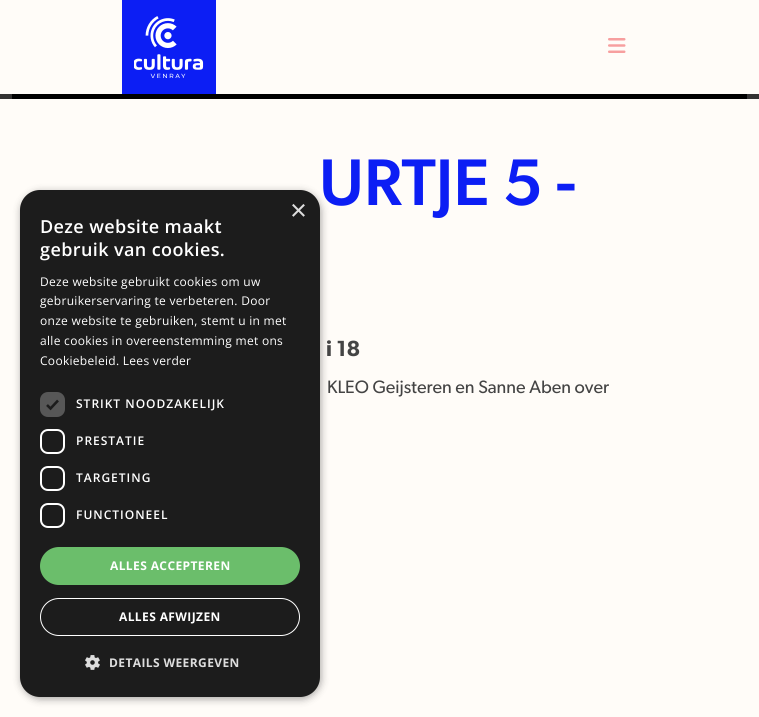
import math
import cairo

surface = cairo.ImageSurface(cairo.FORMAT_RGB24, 759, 717)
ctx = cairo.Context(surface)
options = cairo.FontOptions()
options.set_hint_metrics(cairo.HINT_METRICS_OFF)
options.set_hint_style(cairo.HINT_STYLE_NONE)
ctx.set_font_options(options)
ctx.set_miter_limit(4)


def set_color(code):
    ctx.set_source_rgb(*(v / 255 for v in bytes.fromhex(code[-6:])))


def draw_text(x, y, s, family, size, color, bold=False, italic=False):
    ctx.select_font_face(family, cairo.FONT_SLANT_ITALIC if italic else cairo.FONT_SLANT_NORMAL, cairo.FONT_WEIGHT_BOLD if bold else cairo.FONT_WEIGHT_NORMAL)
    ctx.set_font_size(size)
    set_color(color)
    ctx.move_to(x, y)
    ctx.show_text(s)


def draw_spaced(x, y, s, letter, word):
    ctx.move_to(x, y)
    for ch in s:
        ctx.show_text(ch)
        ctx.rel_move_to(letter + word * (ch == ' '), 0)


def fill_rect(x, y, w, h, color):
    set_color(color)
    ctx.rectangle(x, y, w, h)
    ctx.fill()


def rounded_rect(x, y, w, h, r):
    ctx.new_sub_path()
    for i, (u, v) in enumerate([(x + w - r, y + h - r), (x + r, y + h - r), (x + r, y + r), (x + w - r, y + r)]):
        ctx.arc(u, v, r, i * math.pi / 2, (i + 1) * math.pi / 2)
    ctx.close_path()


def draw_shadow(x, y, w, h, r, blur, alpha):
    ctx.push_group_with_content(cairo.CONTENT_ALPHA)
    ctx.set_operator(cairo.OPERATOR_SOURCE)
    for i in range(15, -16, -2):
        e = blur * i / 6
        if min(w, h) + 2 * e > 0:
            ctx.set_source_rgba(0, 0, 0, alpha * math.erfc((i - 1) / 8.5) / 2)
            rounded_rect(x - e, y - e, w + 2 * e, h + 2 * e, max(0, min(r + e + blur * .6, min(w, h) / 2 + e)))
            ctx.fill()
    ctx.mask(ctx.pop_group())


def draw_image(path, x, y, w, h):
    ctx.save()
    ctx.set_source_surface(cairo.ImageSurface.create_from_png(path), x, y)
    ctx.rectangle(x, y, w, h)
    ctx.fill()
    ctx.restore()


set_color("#fffcf8")
ctx.paint()
fill_rect(122, 0, 94, 94, "#0c1ef4")
draw_image("assets/img1.png", 134, 16, 70, 62)
draw_image("assets/img2.png", 608, 38, 18, 15)
fill_rect(0, 94, 759, 5, "#333232")
fill_rect(12, 94, 735, 5, "#000000")
set_color("#000000")
draw_shadow(21, 192, 300, 507, 20, 4, 0.35)
set_color("#1c1c1c")
rounded_rect(20, 190, 300, 507, 20)
ctx.fill()
draw_text(290, 220, "×", "Liberation Sans", 29, "#dddddd")
ctx.select_font_face("Open Sans SemiBold")
ctx.set_font_size(18)
set_color("#ffffff")
draw_spaced(40, 233, "Deze website maakt", 0.4, 0)
draw_spaced(40, 256, "gebruik van cookies.", 0.4, 0)
ctx.select_font_face("Open Sans")
ctx.set_font_size(12)
draw_spaced(40, 286, "Deze website gebruikt cookies om uw", 0.3, 0)
draw_spaced(40, 305, "gebruikerservaring te verbeteren. Door", 0.3, 0)
draw_spaced(40, 325, "onze website te gebruiken, stemt u in met", 0.3, 0)
draw_spaced(40, 345, "alle cookies in overeenstemming met ons", 0.3, 0)
draw_spaced(40, 365, "Cookiebeleid. Lees verder", 0.3, 0)
set_color("#575757")
rounded_rect(40, 392, 25, 25, 8)
ctx.fill()
ctx.new_path()
ctx.move_to(47, 405)
ctx.line_to(50.5, 408.5)
ctx.line_to(58, 400.5)
set_color("#1c1c1c")
ctx.set_line_width(2.6)
ctx.stroke()
ctx.select_font_face("Open Sans SemiBold")
set_color("#ffffff")
draw_spaced(76, 408, "STRIKT NOODZAKELIJK", 1, 0)
rounded_rect(41, 430, 23, 23, 7)
ctx.set_line_width(2)
ctx.stroke()
draw_spaced(76, 445, "PRESTATIE", 1, 0)
rounded_rect(41, 467, 23, 23, 7)
ctx.stroke()
draw_spaced(76, 482, "TARGETING", 1, 0)
rounded_rect(41, 504, 23, 23, 7)
ctx.stroke()
draw_spaced(76, 519, "FUNCTIONEEL", 1, 0)
set_color("#6bbe6b")
rounded_rect(40, 547, 260, 38, 19)
ctx.fill()
ctx.select_font_face("Open Sans", cairo.FONT_SLANT_NORMAL, cairo.FONT_WEIGHT_BOLD)
set_color("#ffffff")
draw_spaced(110, 570, "ALLES ACCEPTEREN", 0.4, 0)
rounded_rect(40.5, 598.5, 259, 37, 18.5)
ctx.set_line_width(1)
ctx.stroke()
draw_spaced(119, 621, "ALLES AFWIJZEN", 0.4, 0)
draw_image("assets/img3.png", 85, 655, 15, 15)
set_color("#dddddd")
draw_spaced(109, 667, "DETAILS WEERGEVEN", 0.4, 0)
draw_text(319, 205, "URTJE 5 -", "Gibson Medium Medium", 66, "#0c1ef4")
draw_text(326, 356, "i 18", "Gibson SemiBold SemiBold", 22, "#444444")
draw_text(327, 393, "KLEO Geijsteren en Sanne Aben over", "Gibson", 18, "#444444")
surface.write_to_png("output.png")
